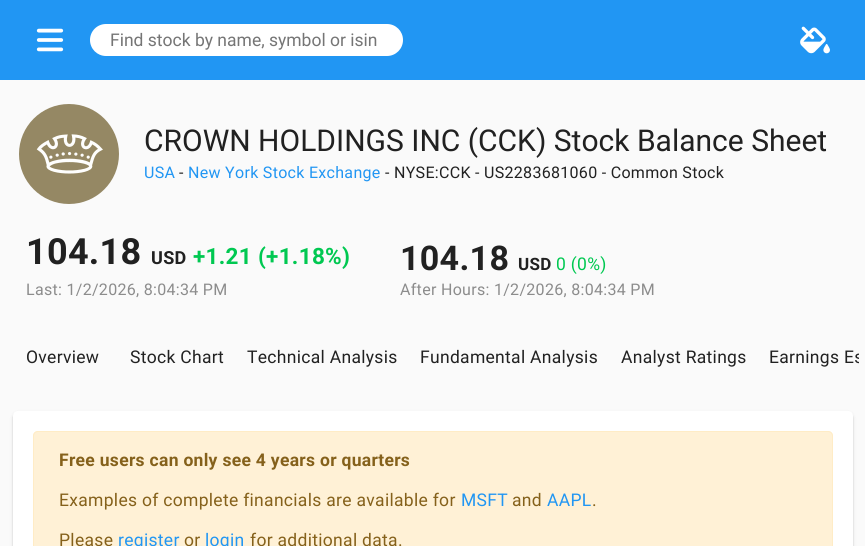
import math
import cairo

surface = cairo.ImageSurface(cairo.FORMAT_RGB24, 865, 546)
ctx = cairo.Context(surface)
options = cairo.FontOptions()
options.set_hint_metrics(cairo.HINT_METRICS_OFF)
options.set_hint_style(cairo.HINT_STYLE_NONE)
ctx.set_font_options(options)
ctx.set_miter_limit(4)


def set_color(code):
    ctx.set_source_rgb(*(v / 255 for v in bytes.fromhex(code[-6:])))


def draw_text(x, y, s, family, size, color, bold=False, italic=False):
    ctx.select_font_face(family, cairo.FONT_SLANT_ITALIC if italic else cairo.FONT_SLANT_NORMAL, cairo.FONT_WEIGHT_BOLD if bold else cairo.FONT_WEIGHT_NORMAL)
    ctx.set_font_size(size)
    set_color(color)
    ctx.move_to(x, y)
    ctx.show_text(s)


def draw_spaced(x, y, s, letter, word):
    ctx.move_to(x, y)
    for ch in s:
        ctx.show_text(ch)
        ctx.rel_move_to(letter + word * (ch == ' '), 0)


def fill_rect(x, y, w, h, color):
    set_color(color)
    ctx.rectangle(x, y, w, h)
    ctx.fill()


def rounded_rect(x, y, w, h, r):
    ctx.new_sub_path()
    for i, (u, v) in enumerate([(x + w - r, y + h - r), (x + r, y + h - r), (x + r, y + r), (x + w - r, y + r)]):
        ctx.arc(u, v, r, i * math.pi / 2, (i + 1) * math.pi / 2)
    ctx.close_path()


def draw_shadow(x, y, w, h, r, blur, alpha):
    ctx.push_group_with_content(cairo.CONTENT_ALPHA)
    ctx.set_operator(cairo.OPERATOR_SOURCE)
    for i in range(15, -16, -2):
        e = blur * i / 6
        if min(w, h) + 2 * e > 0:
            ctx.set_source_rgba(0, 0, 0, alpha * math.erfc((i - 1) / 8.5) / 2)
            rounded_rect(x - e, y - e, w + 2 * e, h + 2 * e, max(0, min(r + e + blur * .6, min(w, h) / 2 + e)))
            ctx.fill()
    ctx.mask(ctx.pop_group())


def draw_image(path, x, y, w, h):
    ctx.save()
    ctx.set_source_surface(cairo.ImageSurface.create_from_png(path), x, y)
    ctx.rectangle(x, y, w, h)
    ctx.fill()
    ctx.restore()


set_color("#fafafa")
ctx.paint()
fill_rect(0, 0, 865, 80, "#2196f3")
draw_image("assets/img1.png", 36, 28, 28, 24)
set_color("#ffffff")
rounded_rect(90, 24, 313, 32, 16)
ctx.fill()
draw_text(110, 46, "Find stock by name, symbol or isin", "Roboto", 17.5, "#757575")
draw_image("assets/img2.png", 800, 26, 30, 28)
draw_image("assets/img3.png", 19, 104, 100, 100)
draw_text(144, 151, "CROWN HOLDINGS INC (CCK) Stock Balance Sheet", "Roboto", 30, "#212121")
ctx.set_font_size(16)
set_color("#2196f3")
draw_spaced(144, 178, "USA", 0.3, 0)
set_color("#212121")
draw_spaced(179, 178, "-", 0.3, 0)
set_color("#2196f3")
draw_spaced(188, 178, "New York Stock Exchange", 0.3, 0)
set_color("#212121")
draw_spaced(385, 178, "- NYSE:CCK - US2283681060 - Common Stock", 0.3, 0)
ctx.select_font_face("Roboto", cairo.FONT_SLANT_NORMAL, cairo.FONT_WEIGHT_BOLD)
ctx.set_font_size(36)
draw_spaced(26, 264, "104.18", 0.3, 0)
ctx.set_font_size(18)
draw_spaced(151, 264, "USD", 0.3, 0)
ctx.set_font_size(22.5)
set_color("#00c851")
draw_spaced(193, 264, "+1.21 (+1.18%)", 0.3, 0)
ctx.select_font_face("Roboto")
ctx.set_font_size(16)
set_color("#8c8c8c")
draw_spaced(26, 295, "Last: 1/2/2026, 8:04:34 PM", 0.3, 0)
ctx.select_font_face("Roboto", cairo.FONT_SLANT_NORMAL, cairo.FONT_WEIGHT_BOLD)
ctx.set_font_size(34)
set_color("#212121")
draw_spaced(400, 270, "104.18", 0.3, 0)
ctx.set_font_size(17)
draw_spaced(518, 270, "USD", 0.3, 0)
ctx.select_font_face("Roboto")
ctx.set_font_size(17.5)
set_color("#00c851")
draw_spaced(556, 270, "0 (0%)", 0.3, 0)
ctx.set_font_size(16)
set_color("#8c8c8c")
draw_spaced(400, 295, "After Hours: 1/2/2026, 8:04:34 PM", 0.3, 0)
ctx.set_font_size(17.5)
set_color("#212121")
draw_spaced(26, 363, "Overview", 0.3, 0)
draw_spaced(130, 363, "Stock Chart", 0.3, 0)
draw_spaced(247, 363, "Technical Analysis", 0.3, 0)
draw_spaced(420, 363, "Fundamental Analysis", 0.3, 0)
draw_spaced(621, 363, "Analyst Ratings", 0.3, 0)
ctx.save()
ctx.rectangle(6, 326, 853, 60)
ctx.clip()
draw_spaced(769, 363, "Earnings Es", 0.3, 0)
ctx.restore()
set_color("#000000")
draw_shadow(13, 413, 840, 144, 5, 2, 0.12)
draw_shadow(13, 413, 840, 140, 5, 0.5, 0.14)
set_color("#ffffff")
ctx.new_path()
ctx.move_to(18, 411)
ctx.line_to(848, 411)
ctx.curve_to(851, 411, 853, 413, 853, 416)
ctx.line_to(853, 546)
ctx.line_to(13, 546)
ctx.line_to(13, 416)
ctx.curve_to(13, 413, 15, 411, 18, 411)
ctx.close_path()
ctx.fill()
set_color("#fff1d6")
ctx.new_path()
ctx.move_to(38, 431)
ctx.line_to(828, 431)
ctx.curve_to(831, 431, 833, 433, 833, 436)
ctx.line_to(833, 546)
ctx.line_to(33, 546)
ctx.line_to(33, 436)
ctx.curve_to(33, 433, 35, 431, 38, 431)
ctx.close_path()
ctx.fill()
rounded_rect(33.5, 431.5, 799, 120, 4.5)
set_color("#ffecc6")
ctx.set_line_width(1)
ctx.stroke()
ctx.select_font_face("Roboto", cairo.FONT_SLANT_NORMAL, cairo.FONT_WEIGHT_BOLD)
set_color("#85611b")
draw_spaced(59, 466, "Free users can only see 4 years or quarters", 0.3, 0)
ctx.select_font_face("Roboto")
draw_spaced(59, 506, "Examples of complete financials are available for", 0.3, 0)
set_color("#2196f3")
draw_spaced(461, 506, "MSFT", 0.3, 0)
set_color("#85611b")
draw_spaced(512, 506, "and", 0.3, 0)
set_color("#2196f3")
draw_spaced(547, 506, "AAPL", 0.3, 0)
set_color("#85611b")
draw_spaced(592, 506, ".", 0.3, 0)
draw_spaced(59, 546, "Please", 0.3, 0)
set_color("#2196f3")
draw_spaced(118, 546, "register", 0.3, 0)
set_color("#85611b")
draw_spaced(184, 546, "or", 0.3, 0)
set_color("#2196f3")
draw_spaced(205, 546, "login", 0.3, 0)
set_color("#85611b")
draw_spaced(250, 546, "for additional data.", 0.3, 0)
surface.write_to_png("output.png")
